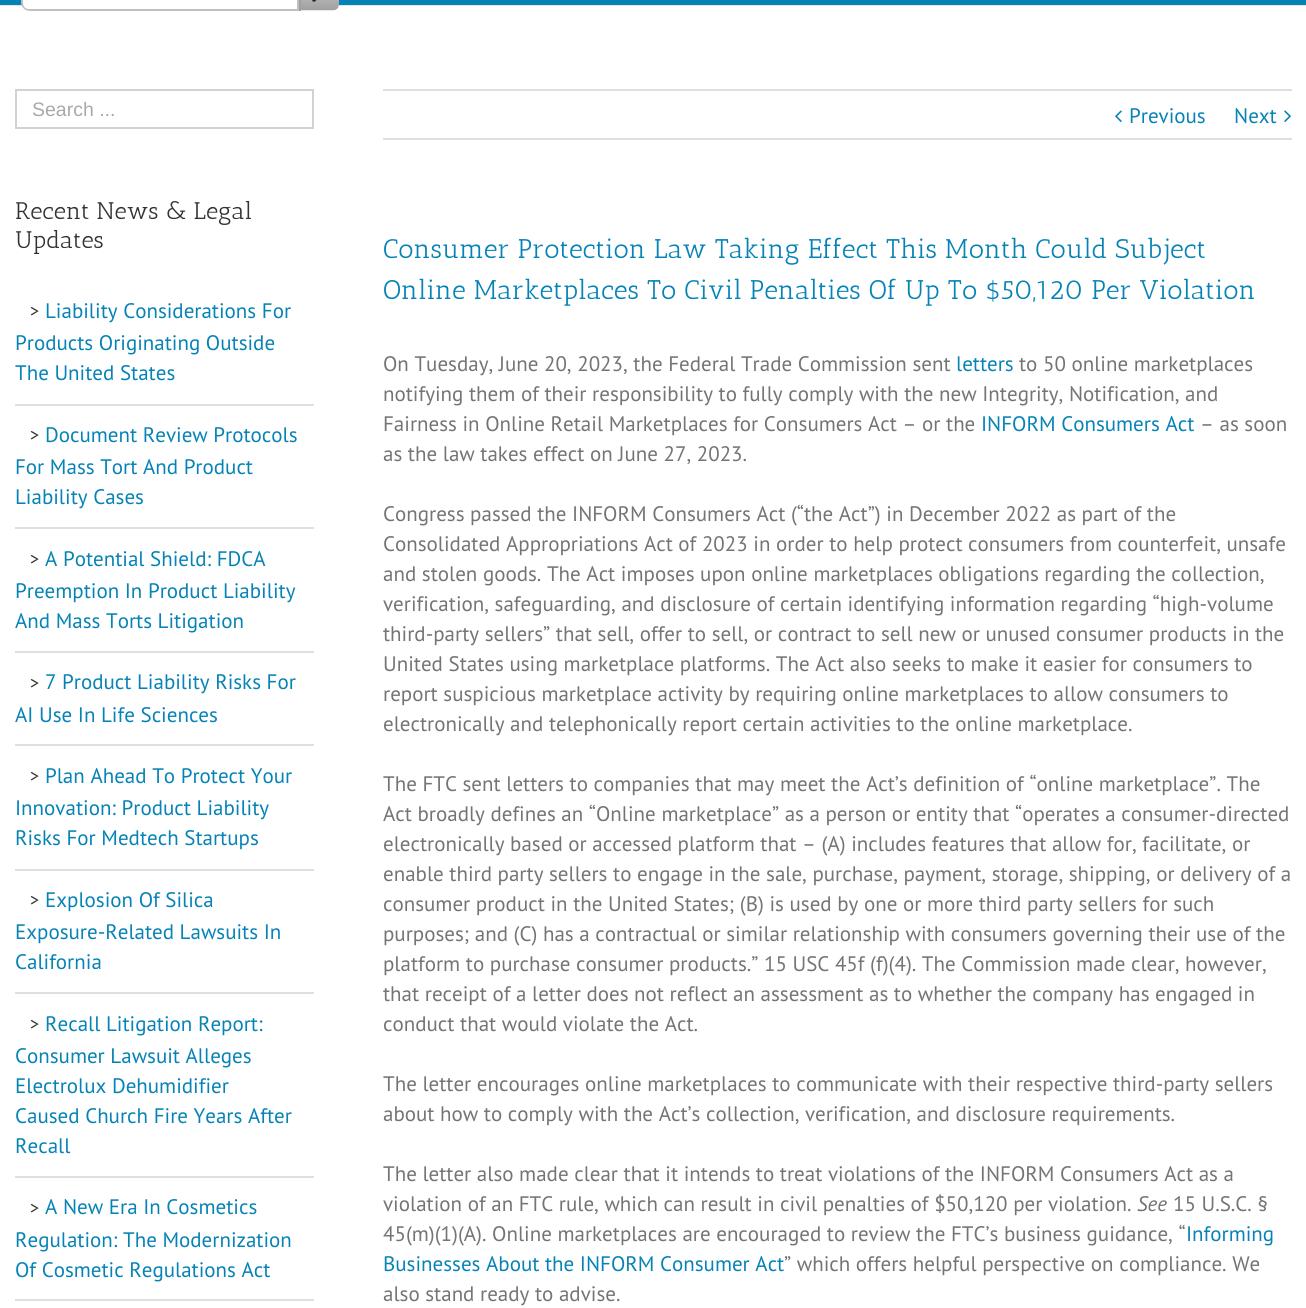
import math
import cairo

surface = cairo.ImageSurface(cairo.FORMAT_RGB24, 1306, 1308)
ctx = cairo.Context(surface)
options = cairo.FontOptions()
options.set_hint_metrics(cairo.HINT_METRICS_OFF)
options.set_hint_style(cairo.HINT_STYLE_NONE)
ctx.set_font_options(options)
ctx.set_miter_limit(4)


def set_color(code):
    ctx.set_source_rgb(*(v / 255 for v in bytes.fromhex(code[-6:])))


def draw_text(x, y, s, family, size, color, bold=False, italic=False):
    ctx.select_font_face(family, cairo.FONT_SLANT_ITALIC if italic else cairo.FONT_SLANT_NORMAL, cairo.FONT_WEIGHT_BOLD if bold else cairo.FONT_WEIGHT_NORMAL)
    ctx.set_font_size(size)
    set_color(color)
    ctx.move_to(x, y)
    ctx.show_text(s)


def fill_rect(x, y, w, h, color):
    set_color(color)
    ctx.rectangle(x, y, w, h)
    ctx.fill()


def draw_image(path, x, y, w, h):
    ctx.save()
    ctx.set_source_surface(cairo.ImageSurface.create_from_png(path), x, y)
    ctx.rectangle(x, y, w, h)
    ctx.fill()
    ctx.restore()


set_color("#0683b6")
ctx.paint()
fill_rect(0, 5, 1306, 1, "#e5e5e5")
fill_rect(0, 6, 1306, 1302, "#ffffff")
ctx.new_path()
ctx.move_to(30, -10)
ctx.line_to(298, -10)
ctx.line_to(298, 10)
ctx.line_to(30, 10)
ctx.curve_to(25.5, 10, 22, 6.5, 22, 2)
ctx.line_to(22, -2)
ctx.curve_to(22, -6.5, 25.5, -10, 30, -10)
ctx.close_path()
set_color("#c0c0c0")
ctx.stroke()
set_color("#ffffff")
ctx.new_path()
ctx.move_to(29, -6)
ctx.line_to(297, -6)
ctx.line_to(297, 9)
ctx.line_to(29, 9)
ctx.curve_to(25.5, 9, 23, 6.5, 23, 3)
ctx.line_to(23, 0)
ctx.curve_to(23, -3.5, 25.5, -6, 29, -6)
ctx.close_path()
ctx.fill()
draw_image("assets/img1.png", 301, 0, 38, 11)
fill_rect(299, 0, 2, 11, "#a0a0a0")
ctx.rectangle(16, 90, 297, 38)
set_color("#d2d2d2")
ctx.stroke()
draw_text(32, 116, "Search ...", "Liberation Sans", 19.5, "#aaa9a9")
draw_text(15, 219, "Recent News & Legal", "Antic Slab", 24, "#333333")
draw_text(15, 248, "Updates", "Antic Slab", 24, "#333333")
fill_rect(15, 404, 299, 2, "#e0dede")
draw_text(30, 317, ">", "PT Sans", 18, "#333333")
draw_text(45, 318, "Liability Considerations For", "PT Sans", 21, "#0683b6")
draw_text(15, 350, "Products Originating Outside", "PT Sans", 21, "#0683b6")
draw_text(15, 380, "The United States", "PT Sans", 21, "#0683b6")
fill_rect(15, 527, 299, 2, "#e0dede")
draw_text(30, 441, ">", "PT Sans", 18, "#333333")
draw_text(45, 442, "Document Review Protocols", "PT Sans", 21, "#0683b6")
draw_text(15, 474, "For Mass Tort And Product", "PT Sans", 21, "#0683b6")
draw_text(15, 504, "Liability Cases", "PT Sans", 21, "#0683b6")
fill_rect(15, 651, 299, 2, "#e0dede")
draw_text(30, 565, ">", "PT Sans", 18, "#333333")
draw_text(45, 566, "A Potential Shield: FDCA", "PT Sans", 21, "#0683b6")
draw_text(15, 598, "Preemption In Product Liability", "PT Sans", 21, "#0683b6")
draw_text(15, 628, "And Mass Torts Litigation", "PT Sans", 21, "#0683b6")
fill_rect(15, 744, 299, 2, "#e0dede")
draw_text(30, 689, ">", "PT Sans", 18, "#333333")
draw_text(45, 689, "7 Product Liability Risks For", "PT Sans", 21, "#0683b6")
draw_text(15, 722, "AI Use In Life Sciences", "PT Sans", 21, "#0683b6")
fill_rect(15, 869, 299, 2, "#e0dede")
draw_text(30, 782, ">", "PT Sans", 18, "#333333")
draw_text(45, 783, "Plan Ahead To Protect Your", "PT Sans", 21, "#0683b6")
draw_text(15, 815, "Innovation: Product Liability", "PT Sans", 21, "#0683b6")
draw_text(15, 845, "Risks For Medtech Startups", "PT Sans", 21, "#0683b6")
fill_rect(15, 992, 299, 2, "#e0dede")
draw_text(30, 906, ">", "PT Sans", 18, "#333333")
draw_text(45, 907, "Explosion Of Silica", "PT Sans", 21, "#0683b6")
draw_text(15, 939, "Exposure-Related Lawsuits In", "PT Sans", 21, "#0683b6")
draw_text(15, 969, "California", "PT Sans", 21, "#0683b6")
fill_rect(15, 1176, 299, 2, "#e0dede")
draw_text(30, 1030, ">", "PT Sans", 18, "#333333")
draw_text(45, 1031, "Recall Litigation Report:", "PT Sans", 21, "#0683b6")
draw_text(15, 1063, "Consumer Lawsuit Alleges", "PT Sans", 21, "#0683b6")
draw_text(15, 1093, "Electrolux Dehumidifier", "PT Sans", 21, "#0683b6")
draw_text(15, 1123, "Caused Church Fire Years After", "PT Sans", 21, "#0683b6")
draw_text(15, 1153, "Recall", "PT Sans", 21, "#0683b6")
fill_rect(15, 1299, 299, 2, "#e0dede")
draw_text(30, 1214, ">", "PT Sans", 18, "#333333")
draw_text(45, 1214, "A New Era In Cosmetics", "PT Sans", 21, "#0683b6")
draw_text(15, 1247, "Regulation: The Modernization", "PT Sans", 21, "#0683b6")
draw_text(15, 1277, "Of Cosmetic Regulations Act", "PT Sans", 21, "#0683b6")
fill_rect(383, 89, 909, 2, "#e0dede")
fill_rect(383, 138, 909, 2, "#e0dede")
draw_image("assets/img2.png", 1115, 110, 7, 12)
draw_text(1129, 123, "Previous", "PT Sans", 21, "#0683b6")
draw_text(1234, 123, "Next", "PT Sans", 21, "#0683b6")
draw_image("assets/img3.png", 1284, 110, 7, 12)
draw_text(383, 258, "Consumer Protection Law Taking Effect This Month Could Subject", "Antic Slab", 27, "#0683b6")
draw_text(383, 299, "Online Marketplaces To Civil Penalties Of Up To $50,120 Per Violation", "Antic Slab", 27, "#0683b6")
draw_text(383, 371, "On Tuesday, June 20, 2023, the Federal Trade Commission sent", "PT Sans", 21, "#747474")
draw_text(956, 371, "letters", "PT Sans", 21, "#0683b6")
draw_text(1019, 371, "to 50 online marketplaces", "PT Sans", 21, "#747474")
draw_text(383, 401, "notifying them of their responsibility to fully comply with the new Integrity, Notification, and", "PT Sans", 21, "#747474")
draw_text(383, 431, "Fairness in Online Retail Marketplaces for Consumers Act – or the", "PT Sans", 21, "#747474")
draw_text(981, 431, "INFORM Consumers Act", "PT Sans", 21, "#0683b6")
draw_text(1200, 431, "– as soon", "PT Sans", 21, "#747474")
draw_text(383, 461, "as the law takes effect on June 27, 2023.", "PT Sans", 21, "#747474")
draw_text(383, 521, "Congress passed the INFORM Consumers Act (“the Act”) in December 2022 as part of the", "PT Sans", 21, "#747474")
draw_text(383, 551, "Consolidated Appropriations Act of 2023 in order to help protect consumers from counterfeit, unsafe", "PT Sans", 21, "#747474")
draw_text(383, 581, "and stolen goods. The Act imposes upon online marketplaces obligations regarding the collection,", "PT Sans", 21, "#747474")
draw_text(383, 611, "verification, safeguarding, and disclosure of certain identifying information regarding “high-volume", "PT Sans", 21, "#747474")
draw_text(383, 641, "third-party sellers” that sell, offer to sell, or contract to sell new or unused consumer products in the", "PT Sans", 21, "#747474")
draw_text(383, 671, "United States using marketplace platforms. The Act also seeks to make it easier for consumers to", "PT Sans", 21, "#747474")
draw_text(383, 701, "report suspicious marketplace activity by requiring online marketplaces to allow consumers to", "PT Sans", 21, "#747474")
draw_text(383, 731, "electronically and telephonically report certain activities to the online marketplace.", "PT Sans", 21, "#747474")
draw_text(383, 791, "The FTC sent letters to companies that may meet the Act’s definition of “online marketplace”. The", "PT Sans", 21, "#747474")
draw_text(383, 821, "Act broadly defines an “Online marketplace” as a person or entity that “operates a consumer-directed", "PT Sans", 21, "#747474")
draw_text(383, 851, "electronically based or accessed platform that – (A) includes features that allow for, facilitate, or", "PT Sans", 21, "#747474")
draw_text(383, 881, "enable third party sellers to engage in the sale, purchase, payment, storage, shipping, or delivery of a", "PT Sans", 21, "#747474")
draw_text(383, 911, "consumer product in the United States; (B) is used by one or more third party sellers for such", "PT Sans", 21, "#747474")
draw_text(383, 941, "purposes; and (C) has a contractual or similar relationship with consumers governing their use of the", "PT Sans", 21, "#747474")
draw_text(383, 971, "platform to purchase consumer products.” 15 USC 45f (f)(4). The Commission made clear, however,", "PT Sans", 21, "#747474")
draw_text(383, 1001, "that receipt of a letter does not reflect an assessment as to whether the company has engaged in", "PT Sans", 21, "#747474")
draw_text(383, 1031, "conduct that would violate the Act.", "PT Sans", 21, "#747474")
draw_text(383, 1091, "The letter encourages online marketplaces to communicate with their respective third-party sellers", "PT Sans", 21, "#747474")
draw_text(383, 1121, "about how to comply with the Act’s collection, verification, and disclosure requirements.", "PT Sans", 21, "#747474")
draw_text(383, 1181, "The letter also made clear that it intends to treat violations of the INFORM Consumers Act as a", "PT Sans", 21, "#747474")
draw_text(383, 1211, "violation of an FTC rule, which can result in civil penalties of $50,120 per violation.", "PT Sans", 21, "#747474")
draw_text(1137, 1211, "See", "PT Sans", 21, "#747474", italic=True)
draw_text(1173, 1211, "15 U.S.C. §", "PT Sans", 21, "#747474")
draw_text(383, 1241, "45(m)(1)(A). Online marketplaces are encouraged to review the FTC’s business guidance, “", "PT Sans", 21, "#747474")
draw_text(1186, 1241, "Informing", "PT Sans", 21, "#0683b6")
draw_text(383, 1271, "Businesses About the INFORM Consumer Act", "PT Sans", 21, "#0683b6")
draw_text(784, 1271, "” which offers helpful perspective on compliance. We", "PT Sans", 21, "#747474")
draw_text(383, 1301, "also stand ready to advise.", "PT Sans", 21, "#747474")
surface.write_to_png("output.png")
